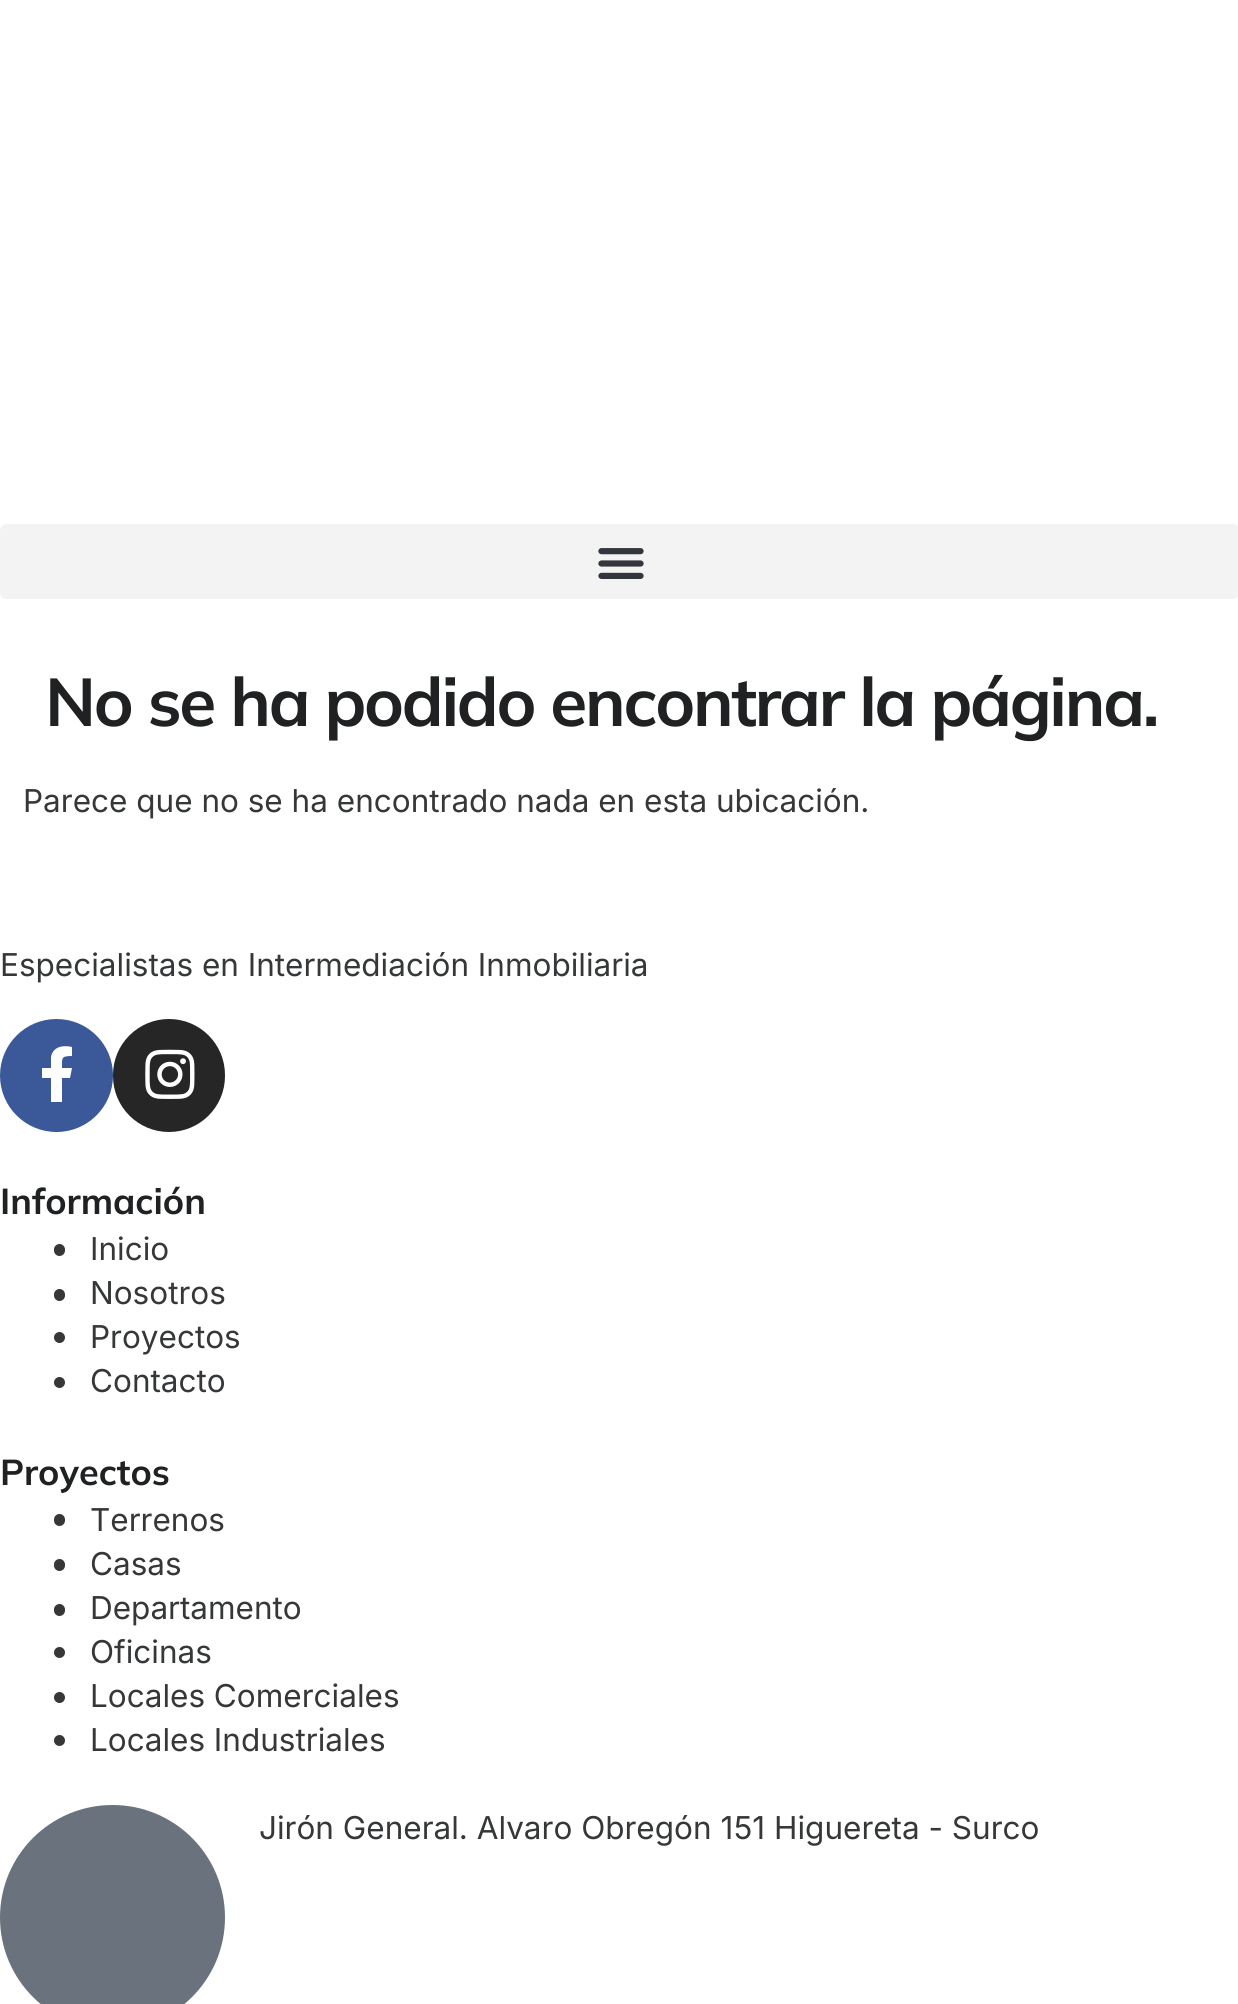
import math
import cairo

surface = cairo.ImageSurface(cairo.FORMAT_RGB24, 1238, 2004)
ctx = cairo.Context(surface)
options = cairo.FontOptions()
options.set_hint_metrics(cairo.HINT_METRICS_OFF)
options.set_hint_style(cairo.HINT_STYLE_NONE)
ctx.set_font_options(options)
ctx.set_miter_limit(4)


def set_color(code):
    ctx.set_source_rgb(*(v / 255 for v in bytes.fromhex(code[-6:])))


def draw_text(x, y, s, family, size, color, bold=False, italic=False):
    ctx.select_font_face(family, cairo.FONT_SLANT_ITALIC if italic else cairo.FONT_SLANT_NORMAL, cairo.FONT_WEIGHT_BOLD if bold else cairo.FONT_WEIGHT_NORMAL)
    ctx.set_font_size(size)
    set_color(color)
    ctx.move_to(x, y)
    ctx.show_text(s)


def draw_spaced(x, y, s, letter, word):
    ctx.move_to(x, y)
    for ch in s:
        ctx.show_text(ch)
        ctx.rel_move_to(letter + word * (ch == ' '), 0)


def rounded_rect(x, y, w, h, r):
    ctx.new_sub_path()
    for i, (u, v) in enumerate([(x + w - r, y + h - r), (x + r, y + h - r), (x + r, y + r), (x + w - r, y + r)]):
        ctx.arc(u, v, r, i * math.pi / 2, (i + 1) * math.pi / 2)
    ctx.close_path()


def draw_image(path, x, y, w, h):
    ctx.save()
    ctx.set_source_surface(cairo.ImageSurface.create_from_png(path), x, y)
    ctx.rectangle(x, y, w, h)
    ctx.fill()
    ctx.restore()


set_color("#ffffff")
ctx.paint()
set_color("#f3f3f3")
rounded_rect(0, 524, 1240, 75, 7)
ctx.fill()
draw_image("assets/img1.png", 598, 548, 46, 31)
ctx.select_font_face("Mulish", cairo.FONT_SLANT_NORMAL, cairo.FONT_WEIGHT_BOLD)
ctx.set_font_size(67.5)
set_color("#1f2122")
draw_spaced(45, 726, "No se ha podido encontrar la página.", -2.25, 0)
draw_text(23, 812, "Parece que no se ha encontrado nada en esta ubicación.", "Inter", 31.5, "#353738")
draw_text(0, 976, "Especialistas en Intermediación Inmobiliaria", "Inter", 31.5, "#353738")
set_color("#3b5998")
ctx.new_path()
ctx.arc(56.5, 1075.5, 56.5, 0, 2 * math.pi)
ctx.fill()
set_color("#ffffff")
ctx.new_path()
ctx.move_to(70, 1078)
ctx.line_to(72, 1068)
ctx.line_to(62, 1068)
ctx.curve_to(62, 1058, 61, 1056, 72, 1056)
ctx.line_to(72, 1047)
ctx.curve_to(64, 1045, 53, 1046, 51, 1057)
ctx.line_to(51, 1068)
ctx.line_to(42, 1068)
ctx.line_to(42, 1078)
ctx.line_to(51, 1078)
ctx.line_to(51, 1102)
ctx.line_to(62, 1102)
ctx.line_to(62, 1078)
ctx.close_path()
ctx.fill()
set_color("#262626")
rounded_rect(113, 1019, 112, 113, 56)
ctx.fill()
draw_image("assets/img2.png", 145, 1049, 50, 50)
draw_text(0, 1214, "Información", "Mulish", 36, "#1f2122", bold=True)
set_color("#353738")
rounded_rect(54, 1244, 11, 12, 5.5)
ctx.fill()
draw_text(90, 1260, "Inicio", "Inter", 31.5, "#353738")
rounded_rect(54, 1289, 11, 12, 5.5)
ctx.fill()
draw_text(90, 1304, "Nosotros", "Inter", 31.5, "#353738")
ctx.new_path()
ctx.arc(59.5, 1337.5, 5.5, 0, 2 * math.pi)
ctx.fill()
draw_text(90, 1348, "Proyectos", "Inter", 31.5, "#353738")
ctx.new_path()
ctx.arc(59.5, 1382.5, 5.5, 0, 2 * math.pi)
ctx.fill()
draw_text(90, 1392, "Contacto", "Inter", 31.5, "#353738")
draw_text(0, 1485, "Proyectos", "Mulish", 36, "#1f2122", bold=True)
set_color("#353738")
rounded_rect(54, 1514, 11, 12, 5.5)
ctx.fill()
draw_text(90, 1531, "Terrenos", "Inter", 31.5, "#353738")
rounded_rect(54, 1559, 11, 12, 5.5)
ctx.fill()
draw_text(90, 1575, "Casas", "Inter", 31.5, "#353738")
rounded_rect(54, 1604, 11, 12, 5.5)
ctx.fill()
draw_text(90, 1619, "Departamento", "Inter", 31.5, "#353738")
ctx.new_path()
ctx.arc(59.5, 1652.5, 5.5, 0, 2 * math.pi)
ctx.fill()
draw_text(90, 1663, "Oficinas", "Inter", 31.5, "#353738")
ctx.new_path()
ctx.arc(59.5, 1697.5, 5.5, 0, 2 * math.pi)
ctx.fill()
draw_text(90, 1707, "Locales Comerciales", "Inter", 31.5, "#353738")
ctx.new_path()
ctx.arc(59.5, 1740.5, 5.5, 0, 2 * math.pi)
ctx.fill()
draw_text(90, 1751, "Locales Industriales", "Inter", 31.5, "#353738")
set_color("#69727d")
ctx.new_path()
ctx.arc(112.5, 1917.5, 112.5, 0, 2 * math.pi)
ctx.fill()
draw_text(259, 1839, "Jirón General. Alvaro Obregón 151 Higuereta - Surco", "Inter", 31.5, "#353738")
surface.write_to_png("output.png")
